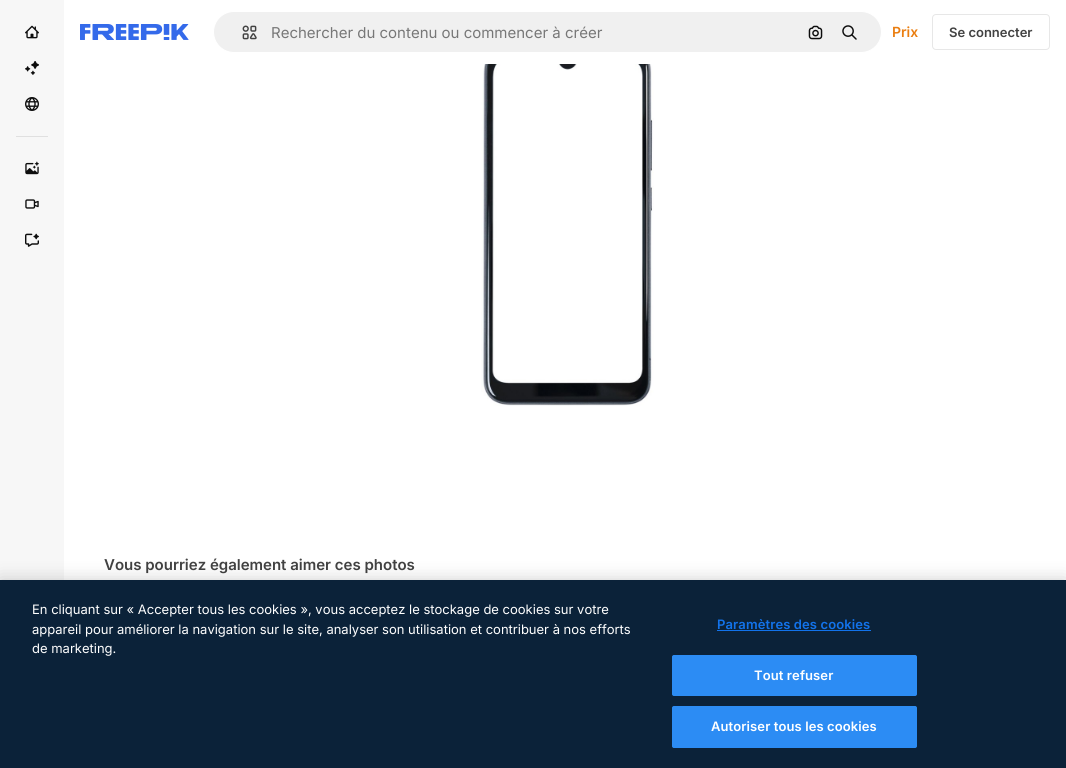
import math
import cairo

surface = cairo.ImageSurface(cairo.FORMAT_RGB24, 1066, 768)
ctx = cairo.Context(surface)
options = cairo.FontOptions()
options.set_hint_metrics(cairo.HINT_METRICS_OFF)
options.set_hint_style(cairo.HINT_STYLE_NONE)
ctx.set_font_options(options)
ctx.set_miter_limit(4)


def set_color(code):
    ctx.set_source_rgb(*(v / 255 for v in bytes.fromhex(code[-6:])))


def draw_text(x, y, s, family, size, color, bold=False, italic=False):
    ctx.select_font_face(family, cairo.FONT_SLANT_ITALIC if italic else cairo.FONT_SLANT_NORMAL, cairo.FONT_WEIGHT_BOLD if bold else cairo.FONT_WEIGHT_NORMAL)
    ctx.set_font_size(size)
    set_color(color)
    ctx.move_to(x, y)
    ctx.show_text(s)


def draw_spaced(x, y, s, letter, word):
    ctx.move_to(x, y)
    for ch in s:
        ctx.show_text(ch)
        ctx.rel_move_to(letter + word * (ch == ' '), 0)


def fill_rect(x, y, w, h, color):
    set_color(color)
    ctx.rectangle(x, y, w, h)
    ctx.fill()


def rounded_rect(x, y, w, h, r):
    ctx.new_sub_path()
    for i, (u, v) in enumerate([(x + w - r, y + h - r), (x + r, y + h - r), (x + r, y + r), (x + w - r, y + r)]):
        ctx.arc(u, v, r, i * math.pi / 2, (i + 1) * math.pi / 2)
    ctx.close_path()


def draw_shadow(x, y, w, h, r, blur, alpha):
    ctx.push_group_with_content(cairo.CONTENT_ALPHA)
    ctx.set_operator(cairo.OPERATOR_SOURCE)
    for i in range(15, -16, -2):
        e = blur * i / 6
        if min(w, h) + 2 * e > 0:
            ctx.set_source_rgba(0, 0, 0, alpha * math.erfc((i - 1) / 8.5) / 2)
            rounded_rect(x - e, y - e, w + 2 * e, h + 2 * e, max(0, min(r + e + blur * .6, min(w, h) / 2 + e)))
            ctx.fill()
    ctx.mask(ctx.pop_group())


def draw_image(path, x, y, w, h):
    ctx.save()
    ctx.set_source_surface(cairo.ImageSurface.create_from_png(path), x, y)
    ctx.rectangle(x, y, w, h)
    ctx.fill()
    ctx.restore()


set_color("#ffffff")
ctx.paint()
fill_rect(0, 0, 64, 580, "#f7f7f7")
draw_image("assets/img1.png", 25, 25, 14, 14)
draw_image("assets/img2.png", 25, 61, 14, 14)
draw_image("assets/img3.png", 25, 97, 14, 14)
fill_rect(16, 136, 32, 1, "#e0e0e0")
draw_image("assets/img4.png", 25, 161, 14, 14)
draw_image("assets/img5.png", 25, 199, 14, 10)
draw_image("assets/img6.png", 25, 233, 14, 14)
draw_image("assets/img7.png", 80, 24, 109, 16)
set_color("#f0f0f0")
rounded_rect(213.5, 11.5, 668, 41, 20.5)
ctx.fill_preserve()
set_color("#ffffff")
ctx.set_line_width(1)
ctx.stroke()
draw_image("assets/img8.png", 242, 25, 15, 15)
draw_text(271, 38, "Rechercher du contenu ou commencer à créer", "Inter", 15, "#777777")
draw_image("assets/img9.png", 808, 25, 15, 15)
draw_image("assets/img10.png", 842, 25, 15, 15)
draw_text(892, 37, "Prix", "Inter SemiBold", 14, "#ea7e11")
rounded_rect(932.5, 14.5, 117, 35, 3.5)
set_color("#e7e7e7")
ctx.stroke()
draw_text(949, 37, "Se connecter", "Inter SemiBold", 13, "#424242")
draw_image("assets/img11.png", 481, 64, 173, 342)
draw_text(104, 570, "Vous pourriez également aimer ces photos", "Inter SemiBold", 15, "#424242")
set_color("#000000")
draw_shadow(0, 580, 1066, 188, 0, 9, 0.2)
fill_rect(0, 580, 1066, 188, "#0b2239")
draw_text(32, 614, "En cliquant sur « Accepter tous les cookies », vous acceptez le stockage de cookies sur votre", "Inter", 13, "#ffffff")
draw_text(32, 634, "appareil pour améliorer la navigation sur le site, analyser son utilisation et contribuer à nos efforts", "Inter", 13, "#ffffff")
draw_text(32, 653, "de marketing.", "Inter", 13, "#ffffff")
ctx.select_font_face("Inter SemiBold")
set_color("#1273eb")
draw_spaced(717, 629, "Paramètres des cookies", 0.1, 0)
fill_rect(717, 630, 154, 1, "#1273eb")
set_color("#2c8cf4")
rounded_rect(672.5, 655.5, 244, 40, 1.5)
ctx.fill_preserve()
ctx.stroke()
set_color("#ffffff")
draw_spaced(754, 680, "Tout refuser", 0.1, 0)
set_color("#2c8cf4")
rounded_rect(672.5, 706.5, 244, 41, 1.5)
ctx.fill_preserve()
ctx.stroke()
set_color("#ffffff")
draw_spaced(711, 731, "Autoriser tous les cookies", 0.1, 0)
surface.write_to_png("output.png")
